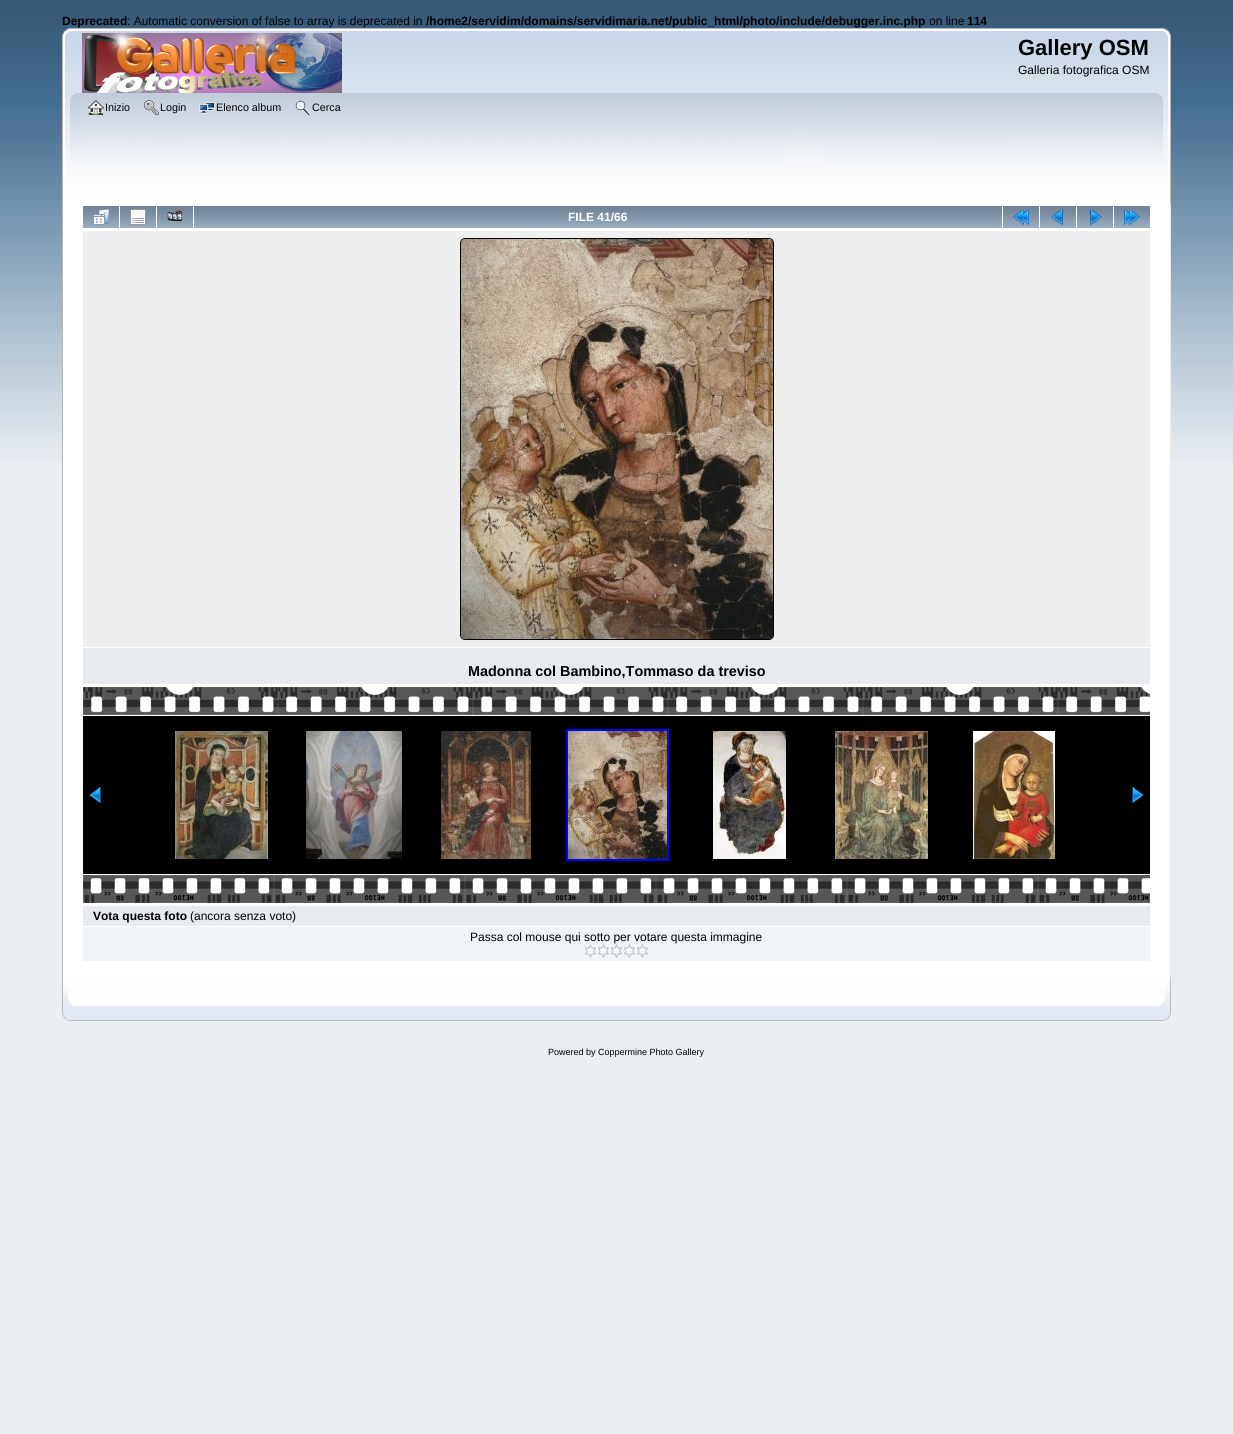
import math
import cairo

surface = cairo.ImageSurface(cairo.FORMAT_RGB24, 1233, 1434)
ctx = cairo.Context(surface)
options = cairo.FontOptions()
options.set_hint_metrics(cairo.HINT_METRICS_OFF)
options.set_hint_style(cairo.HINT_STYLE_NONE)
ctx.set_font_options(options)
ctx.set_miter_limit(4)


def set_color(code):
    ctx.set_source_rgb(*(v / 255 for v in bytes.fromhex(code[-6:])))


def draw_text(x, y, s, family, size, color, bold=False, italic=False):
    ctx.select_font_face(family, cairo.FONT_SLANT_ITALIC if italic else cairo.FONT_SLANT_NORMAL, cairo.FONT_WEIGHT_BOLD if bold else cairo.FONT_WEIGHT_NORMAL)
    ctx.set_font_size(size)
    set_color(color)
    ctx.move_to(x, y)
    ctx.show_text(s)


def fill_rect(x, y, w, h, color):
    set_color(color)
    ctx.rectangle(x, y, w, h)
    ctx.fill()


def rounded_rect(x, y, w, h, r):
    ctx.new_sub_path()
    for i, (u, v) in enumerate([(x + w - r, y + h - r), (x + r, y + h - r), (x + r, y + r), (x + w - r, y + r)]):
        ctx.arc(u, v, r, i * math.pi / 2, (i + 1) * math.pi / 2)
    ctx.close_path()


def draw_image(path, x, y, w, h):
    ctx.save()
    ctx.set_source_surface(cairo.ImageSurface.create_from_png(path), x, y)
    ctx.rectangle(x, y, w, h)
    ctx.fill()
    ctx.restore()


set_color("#e9eef2")
ctx.paint()
draw_image("assets/img1.png", 0, 0, 1233, 462)
draw_text(62, 25, "Deprecated", "Liberation Sans", 12, "#000000", bold=True)
draw_text(127, 25, ": Automatic conversion of false to array is deprecated in", "Liberation Sans", 12, "#000000")
draw_text(426, 25, "/home2/servidim/domains/servidimaria.net/public_html/photo/include/debugger.inc.php", "Liberation Sans", 12, "#000000", bold=True)
draw_text(929, 25, "on line", "Liberation Sans", 12, "#000000")
draw_text(967, 25, "114", "Liberation Sans", 12, "#000000", bold=True)
draw_image("assets/img2.png", 62, 28, 1101, 65)
draw_image("assets/img3.png", 1163, 28, 8, 65)
draw_image("assets/img4.png", 82, 33, 260, 60)
draw_text(1018, 55, "Gallery OSM", "Liberation Sans", 22, "#000000", bold=True)
draw_text(1018, 74, "Galleria fotografica OSM", "Liberation Sans", 12, "#000000")
draw_image("assets/img5.png", 62, 93, 1095, 110)
draw_image("assets/img6.png", 1157, 93, 14, 110)
draw_image("assets/img7.png", 88, 100, 16, 16)
draw_text(105, 111, "Inizio", "Liberation Sans", 10.75, "#000000")
draw_image("assets/img8.png", 144, 100, 15, 15)
draw_text(160, 111, "Login", "Liberation Sans", 10.75, "#000000")
draw_image("assets/img9.png", 199, 102, 16, 12)
draw_text(216, 111, "Elenco album", "Liberation Sans", 10.75, "#000000")
draw_image("assets/img10.png", 295, 100, 16, 15)
draw_text(312, 111, "Cerca", "Liberation Sans", 10.75, "#000000")
fill_rect(63, 203, 1107, 774, "#ffffff")
fill_rect(62, 203, 1, 774, "#b7b7b7")
fill_rect(1170, 203, 1, 774, "#ebebeb")
draw_image("assets/img11.png", 83, 206, 36, 22)
draw_image("assets/img12.png", 93, 209, 16, 16)
draw_image("assets/img11.png", 120, 206, 36, 22)
draw_image("assets/img13.png", 130, 209, 16, 16)
draw_image("assets/img11.png", 157, 206, 36, 22)
draw_image("assets/img14.png", 167, 210, 16, 12)
draw_image("assets/img15.png", 194, 206, 808, 22)
draw_text(568, 221, "FILE 41/66", "Liberation Sans", 12, "#ffffff", bold=True)
draw_image("assets/img11.png", 1003, 206, 36, 22)
draw_image("assets/img16.png", 1013, 209, 16, 16)
draw_image("assets/img11.png", 1040, 206, 36, 22)
draw_image("assets/img17.png", 1051, 209, 12, 16)
draw_image("assets/img11.png", 1077, 206, 36, 22)
draw_image("assets/img18.png", 1090, 209, 12, 16)
draw_image("assets/img11.png", 1114, 206, 36, 22)
draw_image("assets/img19.png", 1124, 209, 16, 16)
fill_rect(83, 231, 1067, 416, "#efefef")
rounded_rect(460.5, 238.5, 313, 401, 4.5)
set_color("#000000")
ctx.set_line_width(1)
ctx.stroke()
draw_image("assets/img20.png", 461, 239, 312, 400)
fill_rect(83, 648, 1067, 36, "#e7eaef")
draw_text(468, 676, "Madonna col Bambino,Tommaso da treviso", "Liberation Sans", 14.4, "#000000", bold=True)
draw_image("assets/img21.png", 83, 687, 1067, 28)
fill_rect(83, 716, 1067, 158, "#000000")
draw_image("assets/img22.png", 89, 787, 12, 16)
draw_image("assets/img23.png", 175, 731, 93, 128)
draw_image("assets/img24.png", 306, 731, 96, 128)
draw_image("assets/img25.png", 441, 731, 90, 128)
ctx.rectangle(567, 730, 101, 130)
set_color("#0000ff")
ctx.set_line_width(2)
ctx.stroke()
draw_image("assets/img26.png", 568, 731, 99, 128)
draw_image("assets/img27.png", 713, 731, 73, 128)
draw_image("assets/img28.png", 835, 731, 93, 128)
draw_image("assets/img29.png", 973, 731, 82, 128)
draw_image("assets/img30.png", 1132, 787, 12, 16)
draw_image("assets/img31.png", 83, 875, 1067, 28)
fill_rect(83, 906, 1067, 20, "#e7eaef")
draw_text(93, 920, "Vota questa foto", "Liberation Sans", 12, "#000000", bold=True)
draw_text(190, 920, "(ancora senza voto)", "Liberation Sans", 12, "#000000")
fill_rect(83, 927, 1067, 34, "#f0f4f7")
draw_text(470, 941, "Passa col mouse qui sotto per votare questa immagine", "Liberation Sans", 12, "#000000")
draw_image("assets/img32.png", 584, 944, 13, 14)
draw_image("assets/img32.png", 597, 944, 13, 14)
draw_image("assets/img32.png", 610, 944, 13, 14)
draw_image("assets/img32.png", 623, 944, 13, 14)
draw_image("assets/img32.png", 636, 944, 13, 14)
draw_image("assets/img33.png", 62, 977, 1096, 44)
draw_image("assets/img34.png", 1158, 977, 13, 44)
draw_text(548, 1055, "Powered by Coppermine Photo Gallery", "Liberation Sans", 9, "#000000")
surface.write_to_png("output.png")
